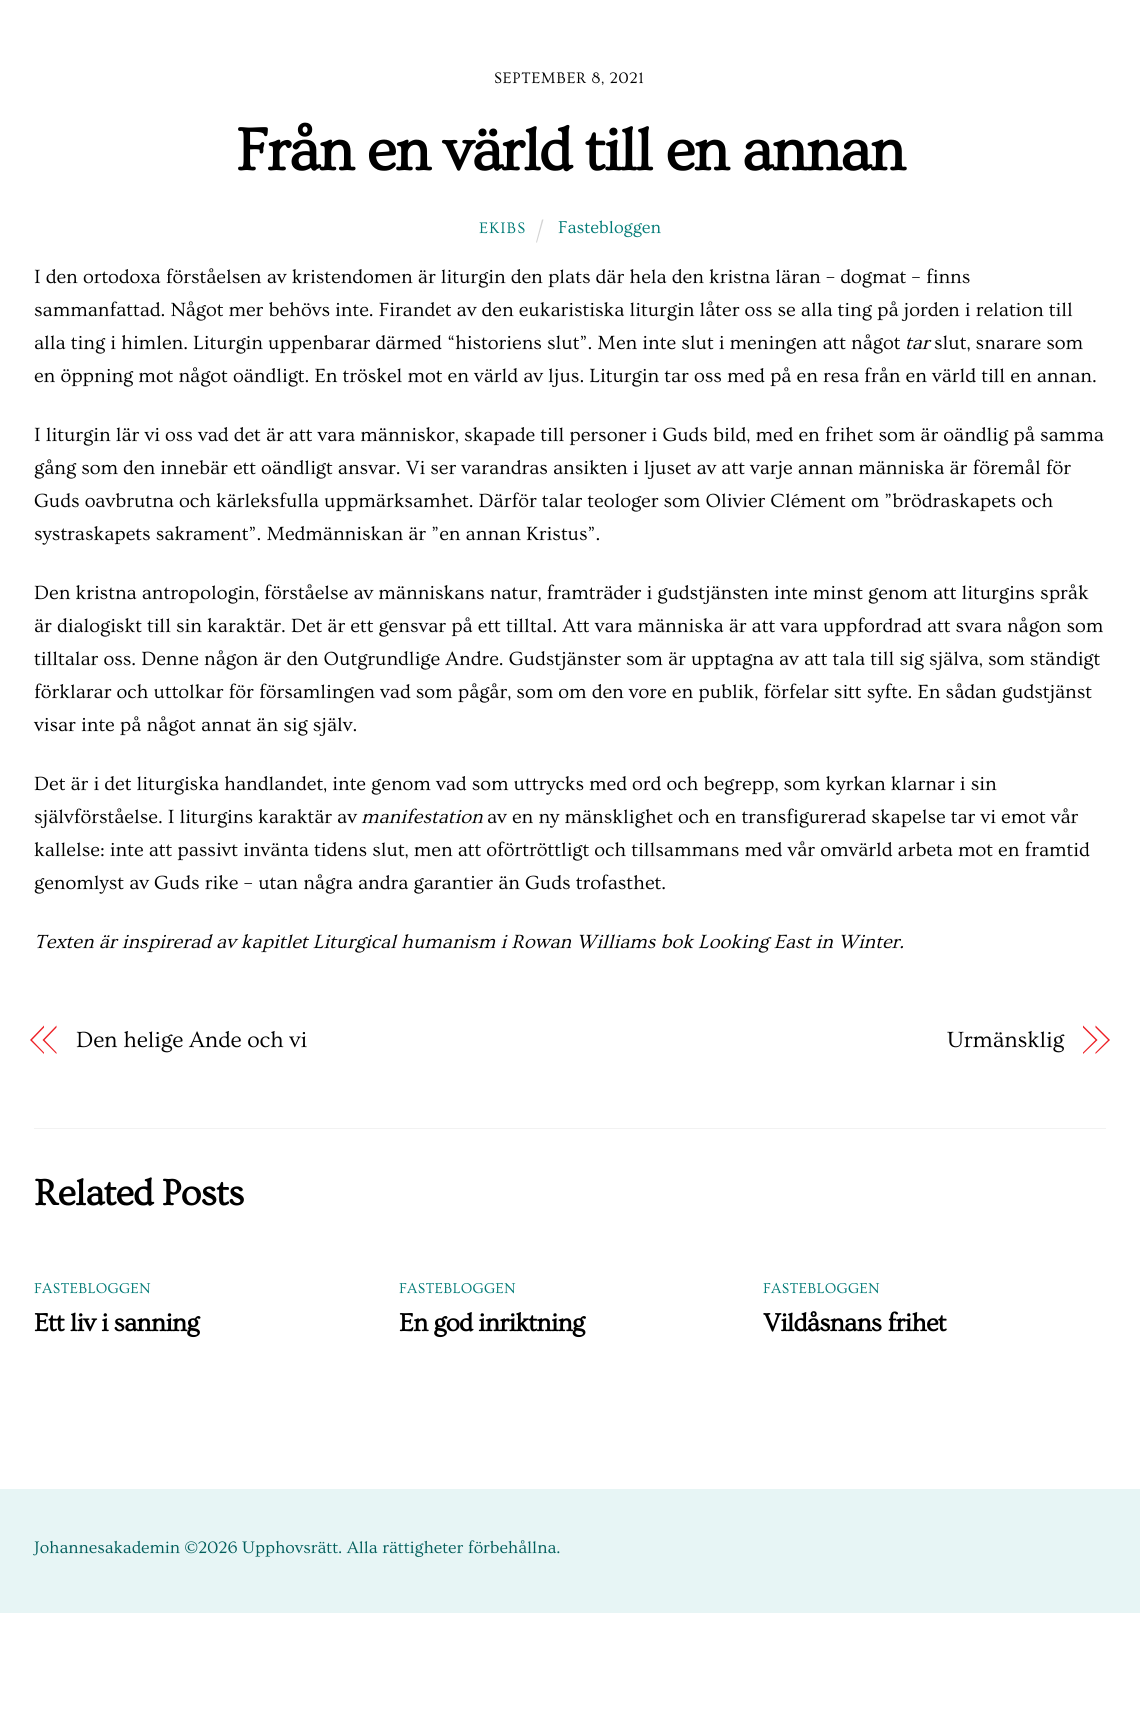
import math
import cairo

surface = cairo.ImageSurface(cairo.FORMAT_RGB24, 1140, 1736)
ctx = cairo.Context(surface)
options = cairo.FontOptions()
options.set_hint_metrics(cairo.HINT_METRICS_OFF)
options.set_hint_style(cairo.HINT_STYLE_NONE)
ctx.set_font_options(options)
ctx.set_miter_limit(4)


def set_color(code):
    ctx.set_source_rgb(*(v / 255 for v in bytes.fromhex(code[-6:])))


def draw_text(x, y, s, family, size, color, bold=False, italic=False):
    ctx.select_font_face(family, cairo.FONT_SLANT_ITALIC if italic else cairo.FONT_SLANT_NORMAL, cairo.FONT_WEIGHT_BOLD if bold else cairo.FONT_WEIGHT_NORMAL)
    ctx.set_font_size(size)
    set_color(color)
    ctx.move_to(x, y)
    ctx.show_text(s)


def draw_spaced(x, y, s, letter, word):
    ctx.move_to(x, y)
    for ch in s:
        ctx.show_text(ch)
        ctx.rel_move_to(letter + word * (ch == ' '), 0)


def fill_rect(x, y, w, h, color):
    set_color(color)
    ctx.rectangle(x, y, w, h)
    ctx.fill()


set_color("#ffffff")
ctx.paint()
ctx.select_font_face("Ovo")
ctx.set_font_size(16)
set_color("#000000")
draw_spaced(494, 83, "SEPTEMBER 8, 2021", 0.6, 0)
ctx.select_font_face("Ovo", cairo.FONT_SLANT_NORMAL, cairo.FONT_WEIGHT_BOLD)
ctx.set_font_size(62)
draw_spaced(236, 170, "Från en värld till en annan", -1.85, 0)
ctx.select_font_face("Ovo")
ctx.set_font_size(16)
set_color("#017a76")
draw_spaced(479, 233, "EKIBS", 1, 0)
set_color("#d3d3d3")
ctx.new_path()
ctx.move_to(542, 219.5)
ctx.line_to(543.5, 219.5)
ctx.line_to(537, 242.5)
ctx.line_to(536, 242.5)
ctx.close_path()
ctx.fill()
draw_text(558, 233, "Fastebloggen", "Ovo", 18, "#017a76")
draw_text(34, 283, "I den ortodoxa förståelsen av kristendomen är liturgin den plats där hela den kristna läran – dogmat – finns", "Ovo", 20, "#000000")
draw_text(34, 316, "sammanfattad. Något mer behövs inte. Firandet av den eukaristiska liturgin låter oss se alla ting på jorden i relation till", "Ovo", 20, "#000000")
draw_text(34, 349, "alla ting i himlen. Liturgin uppenbarar därmed “historiens slut”. Men inte slut i meningen att något", "Ovo", 20, "#000000")
draw_text(905, 349, "tar", "Ovo", 20, "#000000", italic=True)
draw_text(934, 349, "slut, snarare som", "Ovo", 20, "#000000")
draw_text(34, 382, "en öppning mot något oändligt. En tröskel mot en värld av ljus. Liturgin tar oss med på en resa från en värld till en annan.", "Ovo", 20, "#000000")
draw_text(34, 441, "I liturgin lär vi oss vad det är att vara människor, skapade till personer i Guds bild, med en frihet som är oändlig på samma", "Ovo", 20, "#000000")
draw_text(34, 474, "gång som den innebär ett oändligt ansvar. Vi ser varandras ansikten i ljuset av att varje annan människa är föremål för", "Ovo", 20, "#000000")
draw_text(34, 507, "Guds oavbrutna och kärleksfulla uppmärksamhet. Därför talar teologer som Olivier Clément om ”brödraskapets och", "Ovo", 20, "#000000")
draw_text(34, 540, "systraskapets sakrament”. Medmänniskan är ”en annan Kristus”.", "Ovo", 20, "#000000")
draw_text(34, 599, "Den kristna antropologin, förståelse av människans natur, framträder i gudstjänsten inte minst genom att liturgins språk", "Ovo", 20, "#000000")
draw_text(34, 632, "är dialogiskt till sin karaktär. Det är ett gensvar på ett tilltal. Att vara människa är att vara uppfordrad att svara någon som", "Ovo", 20, "#000000")
draw_text(34, 665, "tilltalar oss. Denne någon är den Outgrundlige Andre. Gudstjänster som är upptagna av att tala till sig själva, som ständigt", "Ovo", 20, "#000000")
draw_text(34, 698, "förklarar och uttolkar för församlingen vad som pågår, som om den vore en publik, förfelar sitt syfte. En sådan gudstjänst", "Ovo", 20, "#000000")
draw_text(34, 731, "visar inte på något annat än sig själv.", "Ovo", 20, "#000000")
draw_text(34, 790, "Det är i det liturgiska handlandet, inte genom vad som uttrycks med ord och begrepp, som kyrkan klarnar i sin", "Ovo", 20, "#000000")
draw_text(34, 823, "självförståelse. I liturgins karaktär av", "Ovo", 20, "#000000")
draw_text(361, 823, "manifestation", "Ovo", 20, "#000000", italic=True)
draw_text(487, 823, "av en ny mänsklighet och en transfigurerad skapelse tar vi emot vår", "Ovo", 20, "#000000")
draw_text(34, 856, "kallelse: inte att passivt invänta tidens slut, men att oförtröttligt och tillsammans med vår omvärld arbeta mot en framtid", "Ovo", 20, "#000000")
draw_text(34, 889, "genomlyst av Guds rike – utan några andra garantier än Guds trofasthet.", "Ovo", 20, "#000000")
draw_text(34, 948, "Texten är inspirerad av kapitlet Liturgical humanism i Rowan Williams bok Looking East in Winter.", "Ovo", 20, "#000000", italic=True)
set_color("#ed1e24")
ctx.new_path()
ctx.move_to(30, 1040)
ctx.line_to(44, 1025.5)
ctx.line_to(44, 1027.5)
ctx.line_to(32, 1040)
ctx.close_path()
ctx.move_to(44, 1054)
ctx.line_to(30, 1040)
ctx.line_to(32, 1040)
ctx.line_to(44, 1052.5)
ctx.close_path()
ctx.fill()
ctx.new_path()
ctx.move_to(42.5, 1040)
ctx.line_to(56.5, 1025.5)
ctx.line_to(56.5, 1027.5)
ctx.line_to(44.5, 1040)
ctx.close_path()
ctx.move_to(56.5, 1054)
ctx.line_to(42.5, 1040)
ctx.line_to(44.5, 1040)
ctx.line_to(56.5, 1052.5)
ctx.close_path()
ctx.fill()
ctx.select_font_face("Ovo")
ctx.set_font_size(23)
set_color("#000000")
draw_spaced(76, 1047, "Den helige Ande och vi", -0.1, 0)
draw_spaced(947, 1047, "Urmänsklig", -0.1, 0)
set_color("#ed1e24")
ctx.new_path()
ctx.move_to(1095.5, 1025.5)
ctx.line_to(1110, 1040)
ctx.line_to(1108, 1040)
ctx.line_to(1095.5, 1027.5)
ctx.close_path()
ctx.move_to(1110, 1040)
ctx.line_to(1095.5, 1054)
ctx.line_to(1095.5, 1052.5)
ctx.line_to(1108, 1040)
ctx.close_path()
ctx.fill()
ctx.new_path()
ctx.move_to(1083, 1025.5)
ctx.line_to(1097.5, 1040)
ctx.line_to(1095.5, 1040)
ctx.line_to(1083, 1027.5)
ctx.close_path()
ctx.move_to(1097.5, 1040)
ctx.line_to(1083, 1054)
ctx.line_to(1083, 1052.5)
ctx.line_to(1095.5, 1040)
ctx.close_path()
ctx.fill()
fill_rect(34, 1128, 1072, 1, "#f2f2f2")
ctx.select_font_face("Ovo", cairo.FONT_SLANT_NORMAL, cairo.FONT_WEIGHT_BOLD)
ctx.set_font_size(38)
set_color("#000000")
draw_spaced(34, 1205, "Related Posts", -0.75, 0)
ctx.select_font_face("Ovo")
ctx.set_font_size(15)
set_color("#017a76")
draw_spaced(34, 1293, "FASTEBLOGGEN", 0.25, 0)
ctx.select_font_face("Ovo", cairo.FONT_SLANT_NORMAL, cairo.FONT_WEIGHT_BOLD)
ctx.set_font_size(26)
set_color("#000000")
draw_spaced(34, 1331, "Ett liv i sanning", -0.75, 0)
ctx.select_font_face("Ovo")
ctx.set_font_size(15)
set_color("#017a76")
draw_spaced(399, 1293, "FASTEBLOGGEN", 0.25, 0)
ctx.select_font_face("Ovo", cairo.FONT_SLANT_NORMAL, cairo.FONT_WEIGHT_BOLD)
ctx.set_font_size(26)
set_color("#000000")
draw_spaced(399, 1331, "En god inriktning", -0.75, 0)
ctx.select_font_face("Ovo")
ctx.set_font_size(15)
set_color("#017a76")
draw_spaced(763, 1293, "FASTEBLOGGEN", 0.25, 0)
ctx.select_font_face("Ovo", cairo.FONT_SLANT_NORMAL, cairo.FONT_WEIGHT_BOLD)
ctx.set_font_size(26)
set_color("#000000")
draw_spaced(763, 1331, "Vildåsnans frihet", -0.75, 0)
fill_rect(0, 1489, 1140, 124, "#e7f5f5")
draw_text(34, 1553, "Johannesakademin ©2026 Upphovsrätt. Alla rättigheter förbehållna.", "Ovo", 17.5, "#025e5c")
surface.write_to_png("output.png")
